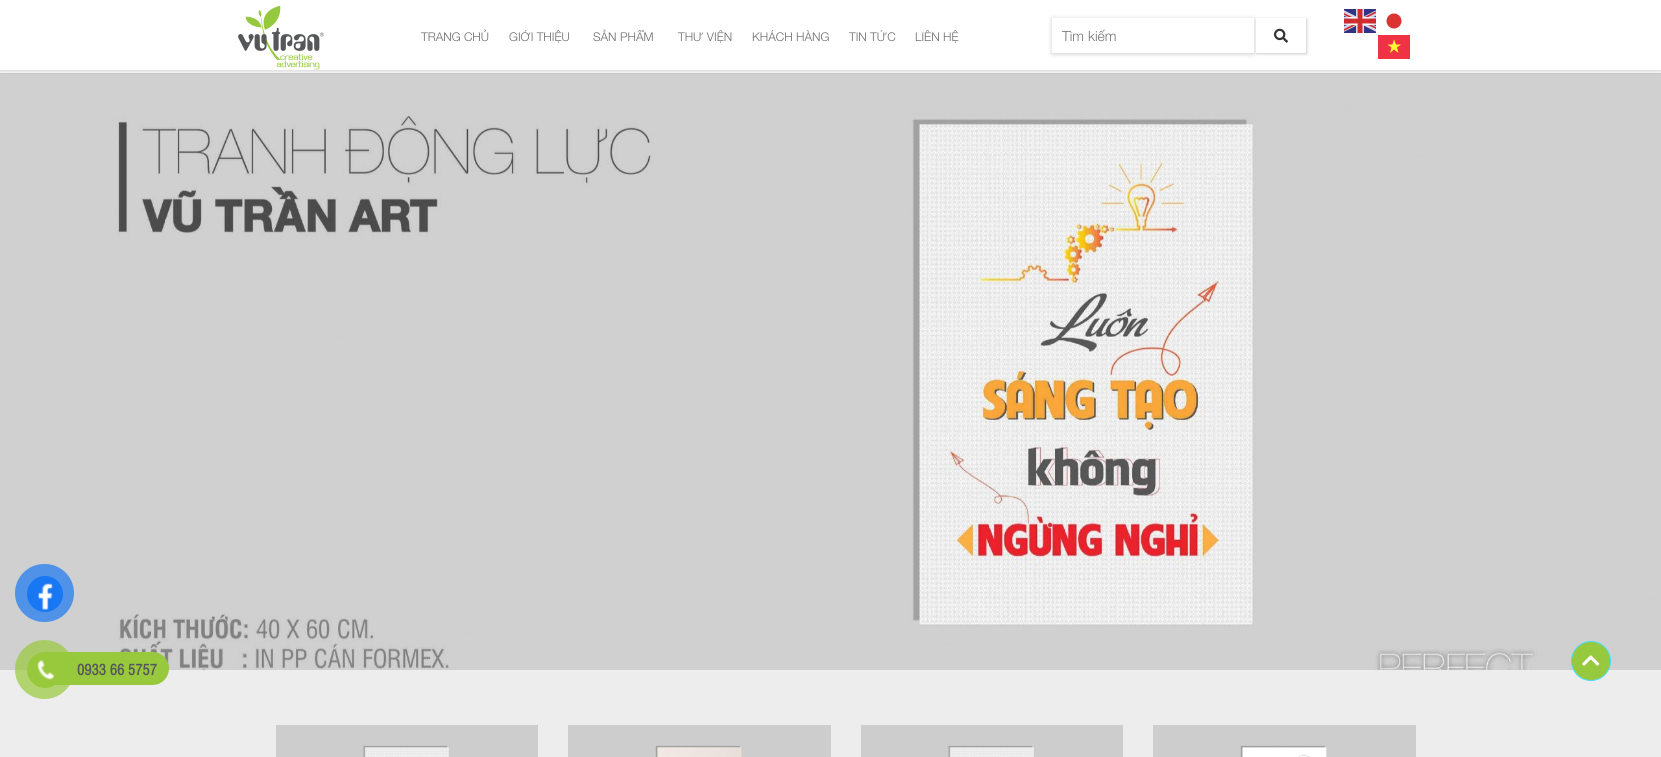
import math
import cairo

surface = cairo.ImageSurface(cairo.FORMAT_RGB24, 1661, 757)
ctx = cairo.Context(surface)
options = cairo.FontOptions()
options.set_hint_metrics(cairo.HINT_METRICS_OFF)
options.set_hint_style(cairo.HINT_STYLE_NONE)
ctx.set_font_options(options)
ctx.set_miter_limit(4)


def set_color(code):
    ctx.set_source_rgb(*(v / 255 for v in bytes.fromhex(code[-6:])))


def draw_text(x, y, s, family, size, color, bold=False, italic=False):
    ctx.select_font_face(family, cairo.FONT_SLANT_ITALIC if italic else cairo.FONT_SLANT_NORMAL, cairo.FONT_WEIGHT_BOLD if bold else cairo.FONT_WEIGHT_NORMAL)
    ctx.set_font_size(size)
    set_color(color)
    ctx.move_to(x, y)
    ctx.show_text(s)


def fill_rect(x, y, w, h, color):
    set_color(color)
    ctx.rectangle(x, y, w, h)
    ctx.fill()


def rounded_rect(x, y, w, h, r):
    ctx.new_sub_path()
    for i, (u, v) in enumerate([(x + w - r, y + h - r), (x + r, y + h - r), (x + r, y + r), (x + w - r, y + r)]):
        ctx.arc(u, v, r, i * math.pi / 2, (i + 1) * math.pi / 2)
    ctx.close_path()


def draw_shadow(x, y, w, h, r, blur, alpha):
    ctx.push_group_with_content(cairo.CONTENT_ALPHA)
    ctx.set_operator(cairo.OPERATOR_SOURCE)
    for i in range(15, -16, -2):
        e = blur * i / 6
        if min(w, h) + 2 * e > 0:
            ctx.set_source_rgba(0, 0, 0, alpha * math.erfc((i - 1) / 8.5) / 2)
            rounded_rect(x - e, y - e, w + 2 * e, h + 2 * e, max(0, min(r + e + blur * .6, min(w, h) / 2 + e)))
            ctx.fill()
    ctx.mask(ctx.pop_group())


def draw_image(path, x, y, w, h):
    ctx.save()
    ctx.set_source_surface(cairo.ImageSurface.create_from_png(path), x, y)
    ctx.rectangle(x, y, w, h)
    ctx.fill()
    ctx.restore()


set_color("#ffffff")
ctx.paint()
draw_image("assets/img4.png", 0, 73, 1661, 597)
ctx.save()
ctx.rectangle(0, 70, 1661, 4)
ctx.clip()
set_color("#000000")
draw_shadow(0, 1, 1661, 70, 0, 2.5, 0.2)
ctx.restore()
draw_image("assets/img1.png", 238, 5, 86, 65)
draw_text(421, 41, "TRANG CHỦ", "Helvetica Neue Light", 12, "#6c6c6d")
draw_text(509, 41, "GIỚI THIỆU", "Helvetica Neue Light", 12, "#6c6c6d")
draw_text(593, 41, "SẢN PHẨM", "Helvetica Neue Light", 12, "#6c6c6d")
draw_text(678, 41, "THƯ VIỆN", "Helvetica Neue Light", 12, "#6c6c6d")
draw_text(752, 41, "KHÁCH HÀNG", "Helvetica Neue Light", 12, "#6c6c6d")
draw_text(849, 41, "TIN TỨC", "Helvetica Neue Light", 12, "#6c6c6d")
draw_text(915, 41, "LIÊN HỆ", "Helvetica Neue Light", 12, "#6c6c6d")
ctx.save()
ctx.set_fill_rule(cairo.FILL_RULE_EVEN_ODD)
ctx.new_path()
ctx.move_to(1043, 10)
ctx.line_to(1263, 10)
ctx.line_to(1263, 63)
ctx.line_to(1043, 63)
ctx.close_path()
ctx.move_to(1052, 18)
ctx.line_to(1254, 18)
ctx.line_to(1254, 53)
ctx.line_to(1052, 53)
ctx.close_path()
ctx.clip()
set_color("#000000")
draw_shadow(1052, 19, 202, 35, 0, 2.5, 0.2)
ctx.restore()
draw_text(1062, 41, "Tìm kiếm", "Helvetica Neue Light", 14, "#757575")
set_color("#000000")
draw_shadow(1257, 19, 50, 35, 0, 1.5, 0.2)
fill_rect(1256, 18, 50, 35, "#ffffff")
draw_image("assets/img2.png", 1274, 28, 14, 15)
draw_image("assets/img3.png", 1344, 9, 32, 24)
set_color("#dc3333")
ctx.arc(1394, 21, 7.5, 0, 2 * math.pi)
ctx.fill()
fill_rect(1378, 35, 32, 24, "#f03344")
set_color("#ffff33")
ctx.set_fill_rule(cairo.FILL_RULE_EVEN_ODD)
ctx.new_path()
ctx.move_to(1398.5, 53)
ctx.line_to(1394, 49.5)
ctx.line_to(1390, 53)
ctx.line_to(1391.5, 47.5)
ctx.line_to(1387.5, 44.5)
ctx.line_to(1392.5, 44.5)
ctx.line_to(1394, 39.5)
ctx.line_to(1396, 44.5)
ctx.line_to(1401, 44.5)
ctx.line_to(1397, 47.5)
ctx.close_path()
ctx.fill()
fill_rect(0, 670, 1661, 87, "#ededed")
draw_image("assets/img5.png", 276, 725, 262, 32)
draw_image("assets/img6.png", 568, 725, 263, 32)
draw_image("assets/img7.png", 861, 725, 262, 32)
draw_image("assets/img8.png", 1153, 725, 263, 32)
set_color("#4f92e8")
rounded_rect(15, 564, 59, 58, 29)
ctx.fill()
set_color("#1877f2")
ctx.arc(45, 594, 18, 0, 2 * math.pi)
ctx.fill()
draw_image("assets/img9.png", 38, 583, 15, 27)
set_color("#98c93c")
rounded_rect(32, 652, 137, 33, 16.5)
ctx.fill()
ctx.set_source_rgba(0.596, 0.788, 0.235, 0.7)
ctx.arc(44.5, 669.5, 29.5, 0, 2 * math.pi)
ctx.fill()
set_color("#98c93c")
ctx.arc(45, 670, 18, 0, 2 * math.pi)
ctx.fill()
draw_image("assets/img10.png", 37, 660, 18, 20)
draw_text(77, 675, "0933 66 5757", "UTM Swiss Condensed", 14.5, "#565759", bold=True)
set_color("#97c93f")
ctx.new_path()
ctx.arc(1591, 661, 19.5, 0, 2 * math.pi)
ctx.fill_preserve()
set_color("#4adcff")
ctx.set_line_width(1)
ctx.stroke()
draw_image("assets/img11.png", 1582, 655, 18, 11)
surface.write_to_png("output.png")
